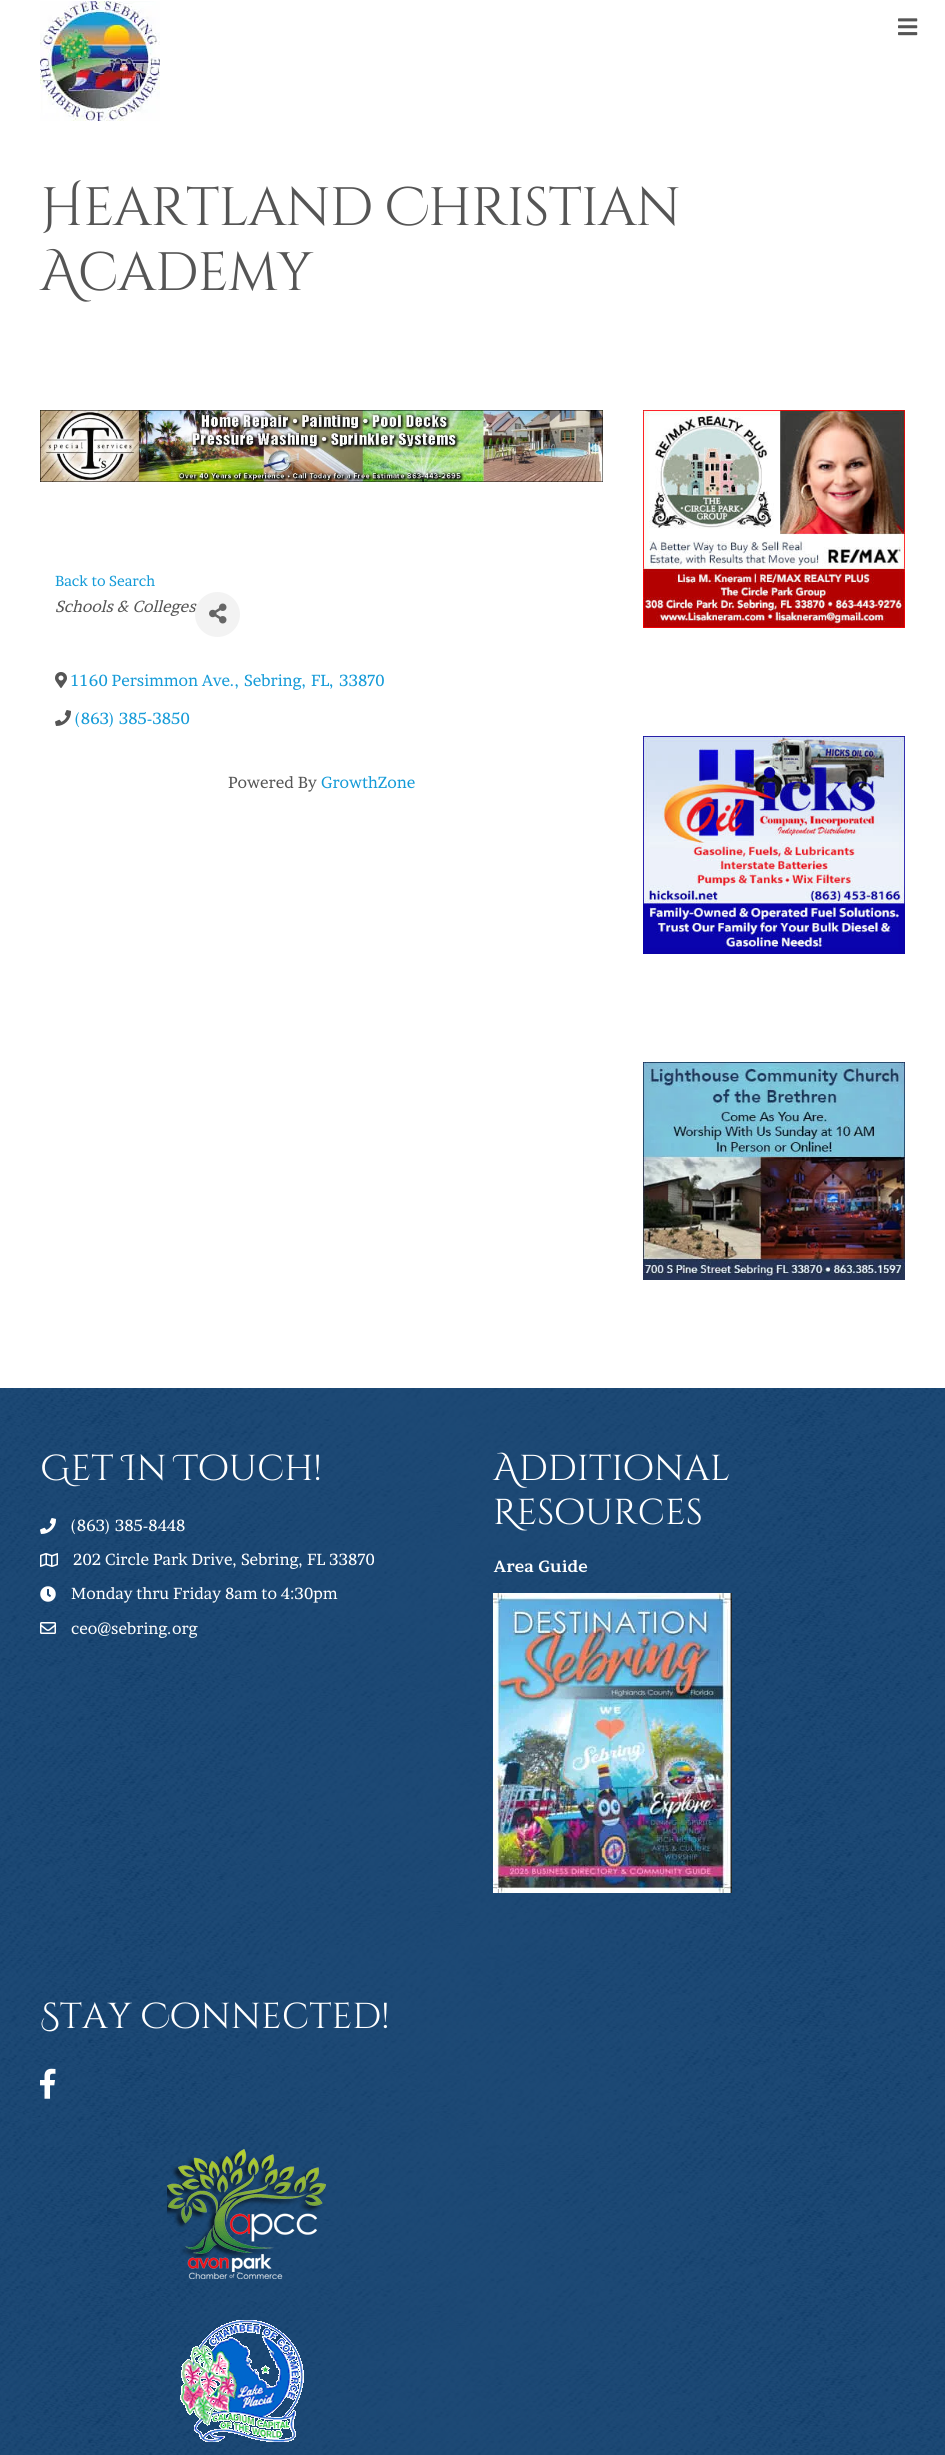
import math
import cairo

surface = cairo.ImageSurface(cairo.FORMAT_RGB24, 945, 2455)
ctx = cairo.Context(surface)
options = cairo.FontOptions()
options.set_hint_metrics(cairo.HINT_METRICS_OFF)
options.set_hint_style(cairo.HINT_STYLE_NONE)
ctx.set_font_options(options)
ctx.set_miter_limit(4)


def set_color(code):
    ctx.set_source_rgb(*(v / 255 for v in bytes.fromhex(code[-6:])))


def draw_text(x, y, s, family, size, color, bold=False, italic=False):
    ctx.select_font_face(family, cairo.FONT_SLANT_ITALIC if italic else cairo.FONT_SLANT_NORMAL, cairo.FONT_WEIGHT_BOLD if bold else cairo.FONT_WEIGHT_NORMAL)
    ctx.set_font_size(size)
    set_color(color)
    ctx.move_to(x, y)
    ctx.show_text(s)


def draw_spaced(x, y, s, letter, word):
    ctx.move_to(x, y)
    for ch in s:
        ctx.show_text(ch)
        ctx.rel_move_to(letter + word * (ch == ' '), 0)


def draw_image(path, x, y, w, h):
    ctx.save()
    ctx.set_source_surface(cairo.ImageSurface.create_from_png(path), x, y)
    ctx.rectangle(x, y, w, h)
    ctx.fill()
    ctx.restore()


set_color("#ffffff")
ctx.paint()
draw_image("assets/img1.png", 40, 1, 120, 120)
draw_image("assets/img2.png", 898, 18, 20, 18)
ctx.select_font_face("Cinzel Decorative")
ctx.set_font_size(54)
set_color("#555555")
draw_spaced(40, 225, "Heartland Christian", -1, 0)
draw_spaced(40, 290, "Academy", -1, 0)
draw_image("assets/img3.png", 40, 410, 563, 72)
draw_text(55, 586, "Back to Search", "Brawler", 14.5, "#159bd8")
draw_text(55, 612, "Schools & Colleges", "Brawler", 16, "#555555", italic=True)
set_color("#f3f3f3")
ctx.new_path()
ctx.arc(217.5, 614.5, 22.5, 0, 2 * math.pi)
ctx.fill()
draw_image("assets/img4.png", 209, 603, 18, 21)
draw_image("assets/img5.png", 55, 672, 12, 16)
draw_text(71, 686, "1160 Persimmon Ave.,", "Brawler", 16, "#159bd8")
draw_text(244, 686, "Sebring,", "Brawler", 16, "#159bd8")
draw_text(311, 686, "FL,", "Brawler", 16, "#159bd8")
draw_text(339, 686, "33870", "Brawler", 16, "#159bd8")
draw_image("assets/img6.png", 55, 710, 16, 16)
draw_text(75, 724, "(863) 385-3850", "Brawler", 16, "#159bd8")
draw_text(228, 788, "Powered By", "Brawler", 16, "#555555")
draw_text(321, 788, "GrowthZone", "Brawler", 16, "#159bd8")
draw_image("assets/img7.png", 643, 410, 262, 218)
draw_image("assets/img8.png", 643, 736, 262, 218)
draw_image("assets/img9.png", 643, 1062, 262, 218)
draw_image("assets/img10.png", 0, 1388, 945, 1067)
draw_text(40, 1480, "Get In Touch!", "Cinzel Decorative", 36, "#ffffff")
draw_image("assets/img11.png", 40, 1518, 16, 16)
draw_text(71, 1531, "(863) 385-8448", "Brawler", 16, "#ffffff")
draw_image("assets/img12.png", 40, 1553, 18, 14)
draw_text(73, 1565, "202 Circle Park Drive, Sebring, FL 33870", "Brawler", 16, "#ffffff")
draw_image("assets/img13.png", 40, 1586, 16, 16)
draw_text(71, 1599, "Monday thru Friday 8am to 4:30pm", "Brawler", 16, "#ffffff")
draw_image("assets/img14.png", 40, 1622, 16, 12)
draw_text(71, 1634, "ceo@sebring.org", "Brawler", 16, "#ffffff")
draw_text(493, 1480, "Additional", "Cinzel Decorative", 36, "#ffffff")
draw_text(493, 1524, "Resources", "Cinzel Decorative", 36, "#ffffff")
draw_text(493, 1572, "Area Guide", "Brawler", 16, "#ffffff", bold=True)
draw_image("assets/img15.png", 493, 1593, 239, 300)
draw_text(40, 2028, "Stay Connected!", "Cinzel Decorative", 36, "#ffffff")
draw_image("assets/img16.png", 40, 2068, 16, 31)
draw_image("assets/img17.png", 167, 2149, 159, 130)
draw_image("assets/img18.png", 180, 2320, 124, 122)
surface.write_to_png("output.png")
